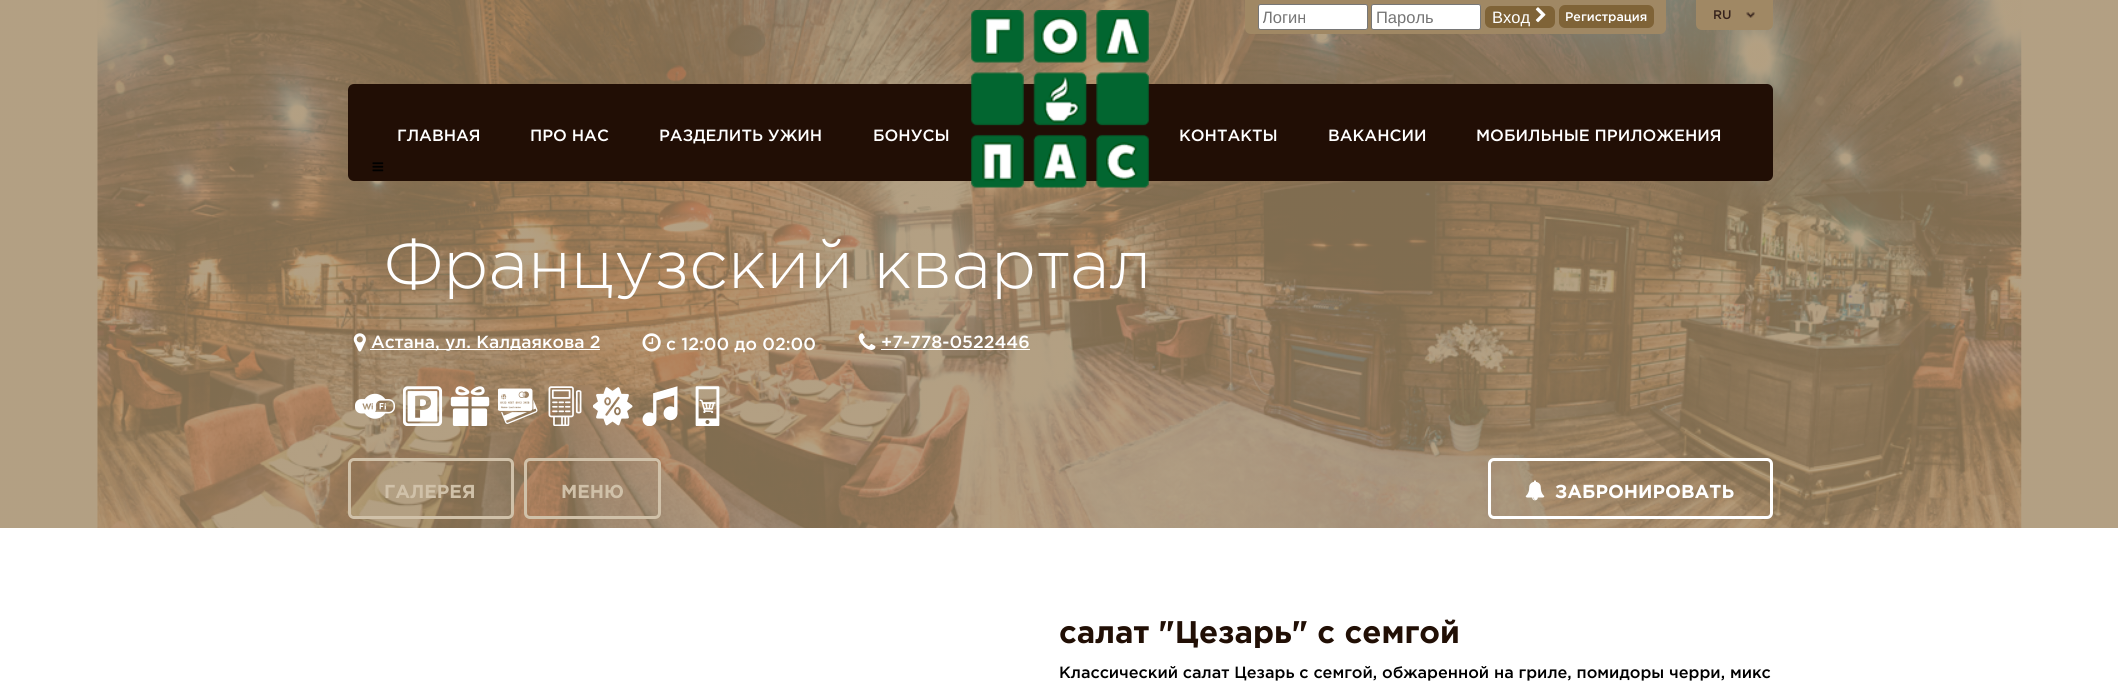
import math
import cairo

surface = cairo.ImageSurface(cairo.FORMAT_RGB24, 2118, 686)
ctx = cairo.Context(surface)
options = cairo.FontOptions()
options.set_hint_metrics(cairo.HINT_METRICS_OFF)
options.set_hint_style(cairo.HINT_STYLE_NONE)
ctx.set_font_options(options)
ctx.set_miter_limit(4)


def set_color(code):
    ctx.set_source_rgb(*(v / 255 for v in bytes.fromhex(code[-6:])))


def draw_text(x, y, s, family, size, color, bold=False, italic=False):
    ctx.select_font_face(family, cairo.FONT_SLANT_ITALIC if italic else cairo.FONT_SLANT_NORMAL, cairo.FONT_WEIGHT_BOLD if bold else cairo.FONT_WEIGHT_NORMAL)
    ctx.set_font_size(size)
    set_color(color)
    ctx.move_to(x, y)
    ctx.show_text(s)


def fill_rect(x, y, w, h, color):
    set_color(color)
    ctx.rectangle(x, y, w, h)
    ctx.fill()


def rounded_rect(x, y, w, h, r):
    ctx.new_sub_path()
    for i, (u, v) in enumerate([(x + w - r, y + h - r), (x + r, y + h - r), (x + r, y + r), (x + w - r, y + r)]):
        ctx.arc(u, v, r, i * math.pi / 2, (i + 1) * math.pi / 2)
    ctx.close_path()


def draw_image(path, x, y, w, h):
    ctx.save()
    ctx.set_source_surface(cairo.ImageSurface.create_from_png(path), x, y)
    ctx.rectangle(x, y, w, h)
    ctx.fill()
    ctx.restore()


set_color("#ffffff")
ctx.paint()
draw_image("assets/img1.png", 0, 0, 2118, 528)
set_color("#210e05")
rounded_rect(348, 84, 1425, 97, 6)
ctx.fill()
draw_image("assets/img2.png", 971, 10, 178, 178)
set_color("#a08864")
ctx.new_path()
ctx.move_to(1245, 0)
ctx.line_to(1666, 0)
ctx.line_to(1666, 28)
ctx.curve_to(1666, 31.5, 1663.5, 34, 1660, 34)
ctx.line_to(1251, 34)
ctx.curve_to(1247.5, 34, 1245, 31.5, 1245, 28)
ctx.close_path()
ctx.fill()
set_color("#ffffff")
rounded_rect(1258.5, 4.5, 109, 25, 2)
ctx.fill_preserve()
set_color("#767676")
ctx.set_line_width(1)
ctx.stroke()
ctx.save()
ctx.rectangle(1263, 8, 100, 18)
ctx.clip()
draw_text(1262, 23, "Логин", "Liberation Sans", 16.5, "#757575")
ctx.restore()
set_color("#ffffff")
rounded_rect(1371.5, 4.5, 109, 25, 2)
ctx.fill_preserve()
set_color("#767676")
ctx.stroke()
draw_text(1376, 23, "Пароль", "Liberation Sans", 16.5, "#757575")
set_color("#7f6337")
rounded_rect(1485, 6, 70, 22, 6)
ctx.fill()
draw_text(1492, 23, "Вход", "Liberation Sans", 16.5, "#ffffff")
draw_image("assets/img3.png", 1535, 7, 11, 16)
set_color("#7f6337")
rounded_rect(1559, 5, 95, 23, 6)
ctx.fill()
draw_text(1565, 21, "Регистрация", "Gotham Medium", 12.5, "#ffffff")
set_color("#a08864")
ctx.new_path()
ctx.move_to(1696, 0)
ctx.line_to(1773, 0)
ctx.line_to(1773, 24)
ctx.curve_to(1773, 27.5, 1770.5, 30, 1767, 30)
ctx.line_to(1702, 30)
ctx.curve_to(1698.5, 30, 1696, 27.5, 1696, 24)
ctx.close_path()
ctx.fill()
draw_text(1713, 19, "RU", "Gotham Medium", 12.5, "#35221c")
draw_image("assets/img4.png", 1746, 12, 9, 6)
draw_text(397, 141, "ГЛАВНАЯ", "Gotham Medium", 16.25, "#ffffff")
draw_text(530, 141, "ПРО НАС", "Gotham Medium", 16.25, "#ffffff")
draw_text(659, 141, "РАЗДЕЛИТЬ УЖИН", "Gotham Medium", 16.25, "#ffffff")
draw_text(873, 141, "БОНУСЫ", "Gotham Medium", 16.25, "#ffffff")
draw_text(1179, 141, "КОНТАКТЫ", "Gotham Medium", 16.25, "#ffffff")
draw_text(1328, 141, "ВАКАНСИИ", "Gotham Medium", 16.25, "#ffffff")
draw_text(1476, 141, "МОБИЛЬНЫЕ ПРИЛОЖЕНИЯ", "Gotham Medium", 16.25, "#ffffff")
draw_image("assets/img5.png", 372, 162, 12, 10)
draw_text(384, 288, "Французский квартал", "Gotham Light", 68.75, "#ffffff")
draw_image("assets/img6.png", 353, 333, 13, 19)
fill_rect(370, 349, 230, 1, "#ffffff")
draw_text(371, 348, "Астана, ул. Калдаякова 2", "Gotham Medium", 17.5, "#ffffff")
draw_image("assets/img7.png", 642, 333, 19, 19)
draw_text(666, 350, "c 12:00 до 02:00", "Gotham Medium", 17.5, "#ffffff")
draw_image("assets/img8.png", 858, 333, 18, 17)
draw_text(881, 348, "+7-778-0522446", "Gotham Medium", 17.5, "#ffffff")
fill_rect(881, 349, 149, 1, "#ffffff")
draw_image("assets/img9.png", 355, 393, 40, 26)
draw_image("assets/img10.png", 403, 386, 40, 40)
draw_image("assets/img11.png", 450, 386, 40, 40)
draw_image("assets/img12.png", 498, 388, 40, 36)
draw_image("assets/img13.png", 548, 386, 34, 40)
draw_image("assets/img14.png", 593, 387, 40, 39)
draw_image("assets/img15.png", 642, 386, 36, 40)
draw_image("assets/img16.png", 695, 386, 25, 40)
rounded_rect(349.5, 459.5, 163, 58, 4.5)
set_color("#d0c1a9")
ctx.set_line_width(3)
ctx.stroke()
draw_text(384, 498, "ГАЛЕРЕЯ", "Gotham", 18.75, "#d0c1a9", bold=True)
rounded_rect(525.5, 459.5, 134, 58, 4.5)
ctx.stroke()
draw_text(561, 498, "МЕНЮ", "Gotham", 18.75, "#d0c1a9", bold=True)
rounded_rect(1489.5, 459.5, 282, 58, 4.5)
set_color("#ffffff")
ctx.stroke()
draw_image("assets/img17.png", 1525, 480, 20, 21)
draw_text(1555, 498, "ЗАБРОНИРОВАТЬ", "Gotham", 18.75, "#ffffff", bold=True)
draw_text(1059, 643, "салат \"Цезарь\" с семгой", "Gotham", 31.25, "#210f05", bold=True)
draw_text(1059, 678, "Классический салат Цезарь с семгой, обжаренной на гриле, помидоры черри, микс", "Gotham Medium", 16.25, "#000000")
surface.write_to_png("output.png")
